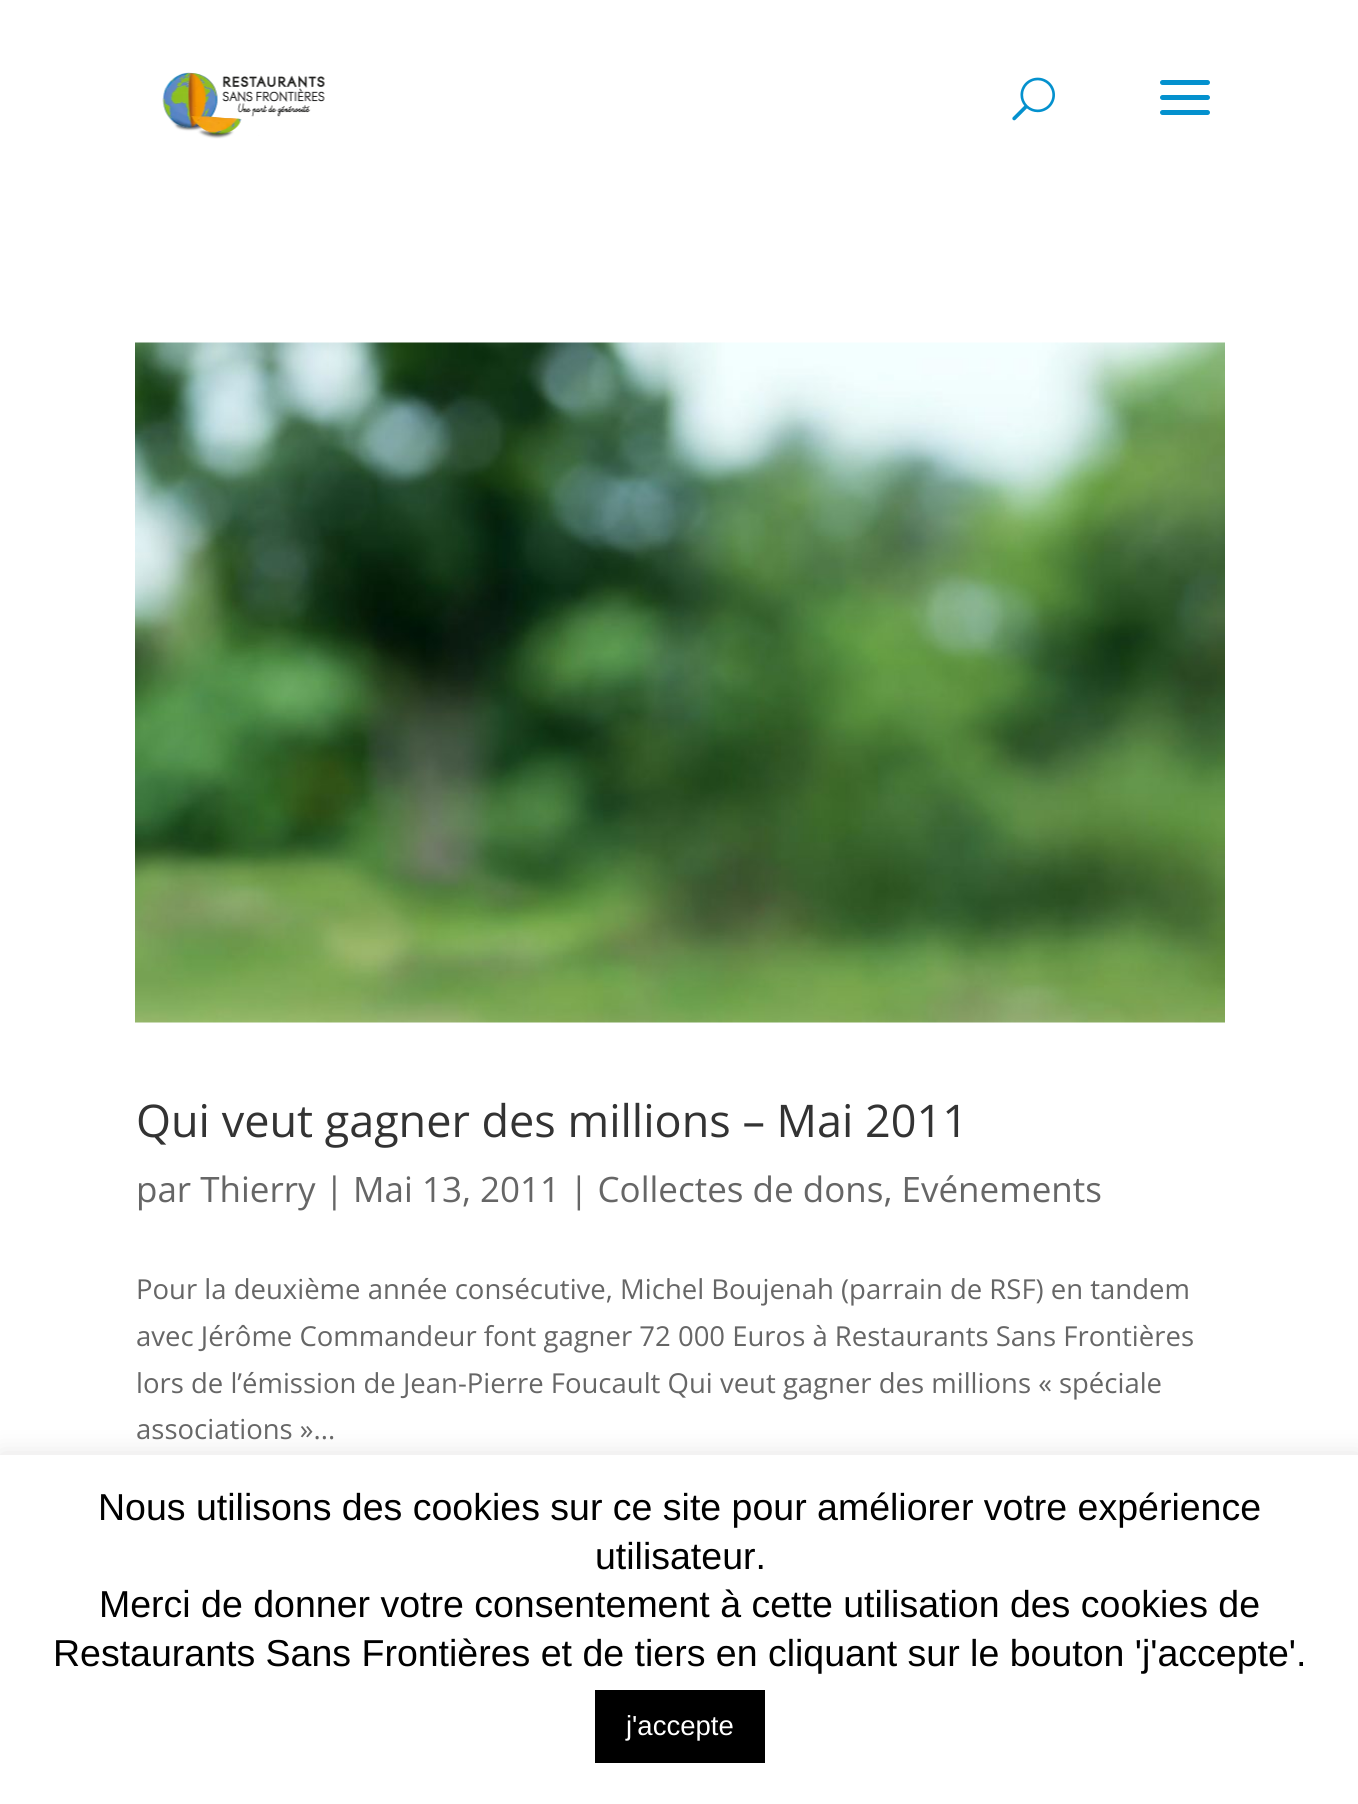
import math
import cairo

surface = cairo.ImageSurface(cairo.FORMAT_RGB24, 1358, 1804)
ctx = cairo.Context(surface)
options = cairo.FontOptions()
options.set_hint_metrics(cairo.HINT_METRICS_OFF)
options.set_hint_style(cairo.HINT_STYLE_NONE)
ctx.set_font_options(options)
ctx.set_miter_limit(4)


def set_color(code):
    ctx.set_source_rgb(*(v / 255 for v in bytes.fromhex(code[-6:])))


def draw_text(x, y, s, family, size, color, bold=False, italic=False):
    ctx.select_font_face(family, cairo.FONT_SLANT_ITALIC if italic else cairo.FONT_SLANT_NORMAL, cairo.FONT_WEIGHT_BOLD if bold else cairo.FONT_WEIGHT_NORMAL)
    ctx.set_font_size(size)
    set_color(color)
    ctx.move_to(x, y)
    ctx.show_text(s)


def fill_rect(x, y, w, h, color):
    set_color(color)
    ctx.rectangle(x, y, w, h)
    ctx.fill()


def rounded_rect(x, y, w, h, r):
    ctx.new_sub_path()
    for i, (u, v) in enumerate([(x + w - r, y + h - r), (x + r, y + h - r), (x + r, y + r), (x + w - r, y + r)]):
        ctx.arc(u, v, r, i * math.pi / 2, (i + 1) * math.pi / 2)
    ctx.close_path()


def draw_shadow(x, y, w, h, r, blur, alpha):
    ctx.push_group_with_content(cairo.CONTENT_ALPHA)
    ctx.set_operator(cairo.OPERATOR_SOURCE)
    for i in range(15, -16, -2):
        e = blur * i / 6
        if min(w, h) + 2 * e > 0:
            ctx.set_source_rgba(0, 0, 0, alpha * math.erfc((i - 1) / 8.5) / 2)
            rounded_rect(x - e, y - e, w + 2 * e, h + 2 * e, max(0, min(r + e + blur * .6, min(w, h) / 2 + e)))
            ctx.fill()
    ctx.mask(ctx.pop_group())


def draw_image(path, x, y, w, h):
    ctx.save()
    ctx.set_source_surface(cairo.ImageSurface.create_from_png(path), x, y)
    ctx.rectangle(x, y, w, h)
    ctx.fill()
    ctx.restore()


set_color("#ffffff")
ctx.paint()
draw_image("assets/img1.png", 162, 72, 163, 67)
draw_image("assets/img2.png", 1012, 77, 43, 44)
draw_image("assets/img3.png", 1160, 80, 50, 35)
draw_image("assets/img4.png", 135, 342, 1090, 681)
draw_text(136, 1137, "Qui veut gagner des millions – Mai 2011", "Open Sans", 45, "#333333")
draw_text(136, 1202, "par Thierry | Mai 13, 2011 | Collectes de dons, Evénements", "Open Sans", 35, "#666666")
draw_text(136, 1299, "Pour la deuxième année consécutive, Michel Boujenah (parrain de RSF) en tandem", "Open Sans", 27.5, "#666666")
draw_text(136, 1346, "avec Jérôme Commandeur font gagner 72 000 Euros à Restaurants Sans Frontières", "Open Sans", 27.5, "#666666")
draw_text(136, 1393, "lors de l’émission de Jean-Pierre Foucault Qui veut gagner des millions « spéciale", "Open Sans", 27.5, "#666666")
draw_text(136, 1439, "associations »...", "Open Sans", 27.5, "#666666")
set_color("#acabab")
draw_shadow(0, 1453, 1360, 350, 0, 12.5, 0.3)
fill_rect(0, 1455, 1358, 349, "#ffffff")
draw_text(98, 1520, "Nous utilisons des cookies sur ce site pour améliorer votre expérience", "Liberation Sans", 37.5, "#000000")
draw_text(595, 1569, "utilisateur.", "Liberation Sans", 37.5, "#000000")
draw_text(99, 1617, "Merci de donner votre consentement à cette utilisation des cookies de", "Liberation Sans", 37.5, "#000000")
draw_text(53, 1666, "Restaurants Sans Frontières et de tiers en cliquant sur le bouton 'j'accepte'.", "Liberation Sans", 37.5, "#000000")
fill_rect(595, 1690, 170, 73, "#000000")
draw_text(626, 1735, "j'accepte", "Liberation Sans", 27.5, "#ffffff")
surface.write_to_png("output.png")
